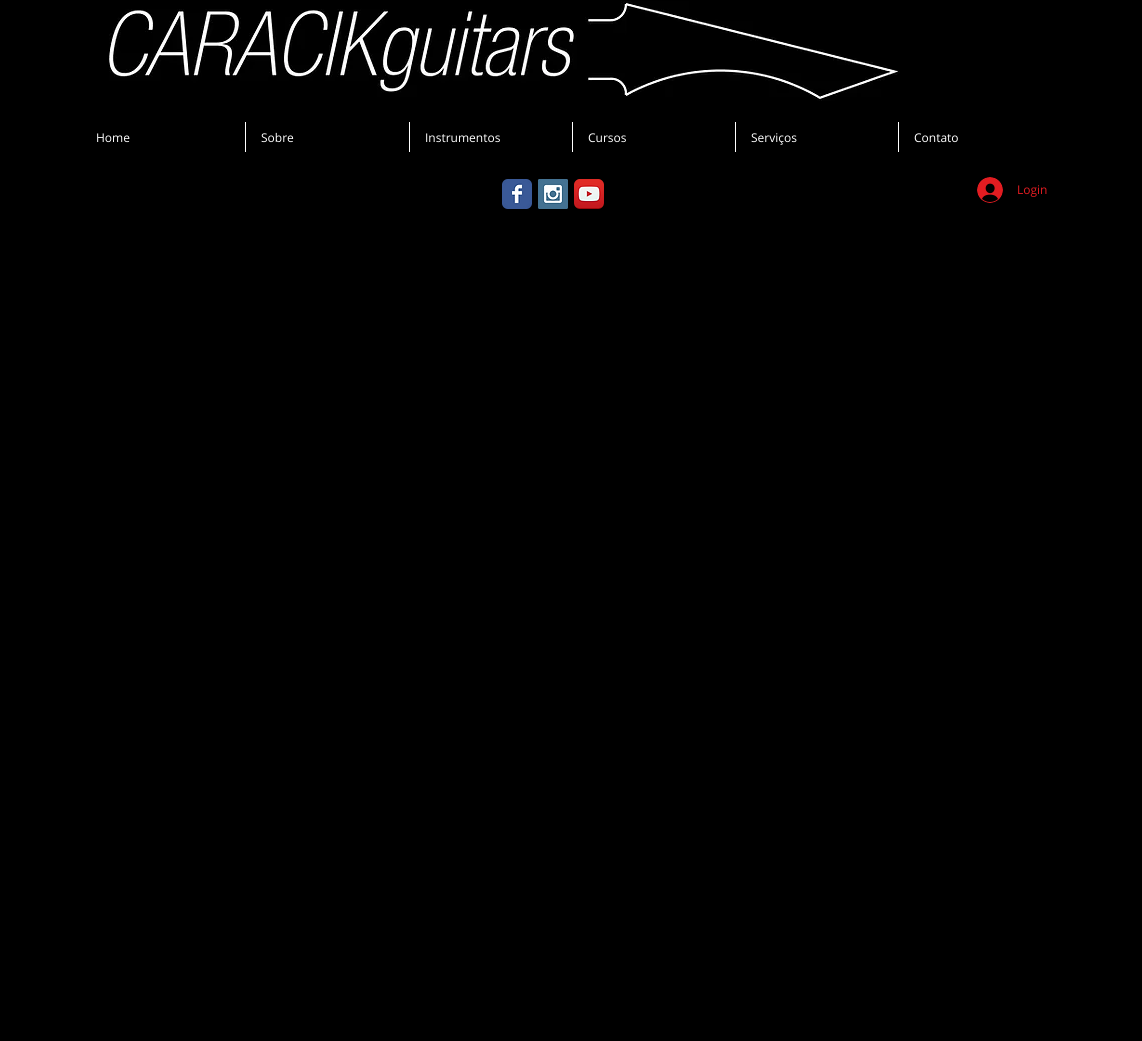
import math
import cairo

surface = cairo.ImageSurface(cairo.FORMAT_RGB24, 1142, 1041)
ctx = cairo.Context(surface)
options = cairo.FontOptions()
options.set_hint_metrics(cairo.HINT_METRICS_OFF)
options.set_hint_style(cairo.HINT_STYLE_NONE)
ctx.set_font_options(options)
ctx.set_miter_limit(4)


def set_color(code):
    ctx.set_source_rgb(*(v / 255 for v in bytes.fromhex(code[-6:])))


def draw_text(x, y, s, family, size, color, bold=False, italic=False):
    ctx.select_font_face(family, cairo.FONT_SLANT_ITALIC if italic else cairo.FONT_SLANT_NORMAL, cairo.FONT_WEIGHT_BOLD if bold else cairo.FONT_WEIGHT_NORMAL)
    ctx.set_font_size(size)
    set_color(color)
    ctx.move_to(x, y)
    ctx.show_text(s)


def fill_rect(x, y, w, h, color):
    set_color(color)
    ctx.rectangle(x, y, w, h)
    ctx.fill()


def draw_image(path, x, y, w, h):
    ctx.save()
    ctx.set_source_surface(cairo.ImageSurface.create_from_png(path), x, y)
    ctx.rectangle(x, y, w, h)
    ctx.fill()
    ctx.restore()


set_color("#000000")
ctx.paint()
draw_image("assets/img1.png", 109, 1, 791, 100)
draw_text(96, 142, "Home", "Open Sans", 12, "#ffffff")
fill_rect(245, 122, 1, 30, "#ffffff")
draw_text(261, 142, "Sobre", "Open Sans", 12, "#ffffff")
fill_rect(409, 122, 1, 30, "#ffffff")
draw_text(425, 142, "Instrumentos", "Open Sans", 12, "#ffffff")
fill_rect(572, 122, 1, 30, "#ffffff")
draw_text(588, 142, "Cursos", "Open Sans", 12, "#ffffff")
fill_rect(735, 122, 1, 30, "#ffffff")
draw_text(751, 142, "Serviços", "Open Sans", 12, "#ffffff")
fill_rect(898, 122, 1, 30, "#ffffff")
draw_text(914, 142, "Contato", "Open Sans", 12, "#ffffff")
draw_image("assets/img2.png", 502, 179, 30, 30)
draw_image("assets/img3.png", 538, 179, 30, 30)
draw_image("assets/img4.png", 574, 179, 30, 30)
draw_image("assets/img5.png", 977, 177, 26, 26)
draw_text(1017, 194, "Login", "Open Sans", 12, "#e21c21")
surface.write_to_png("output.png")
